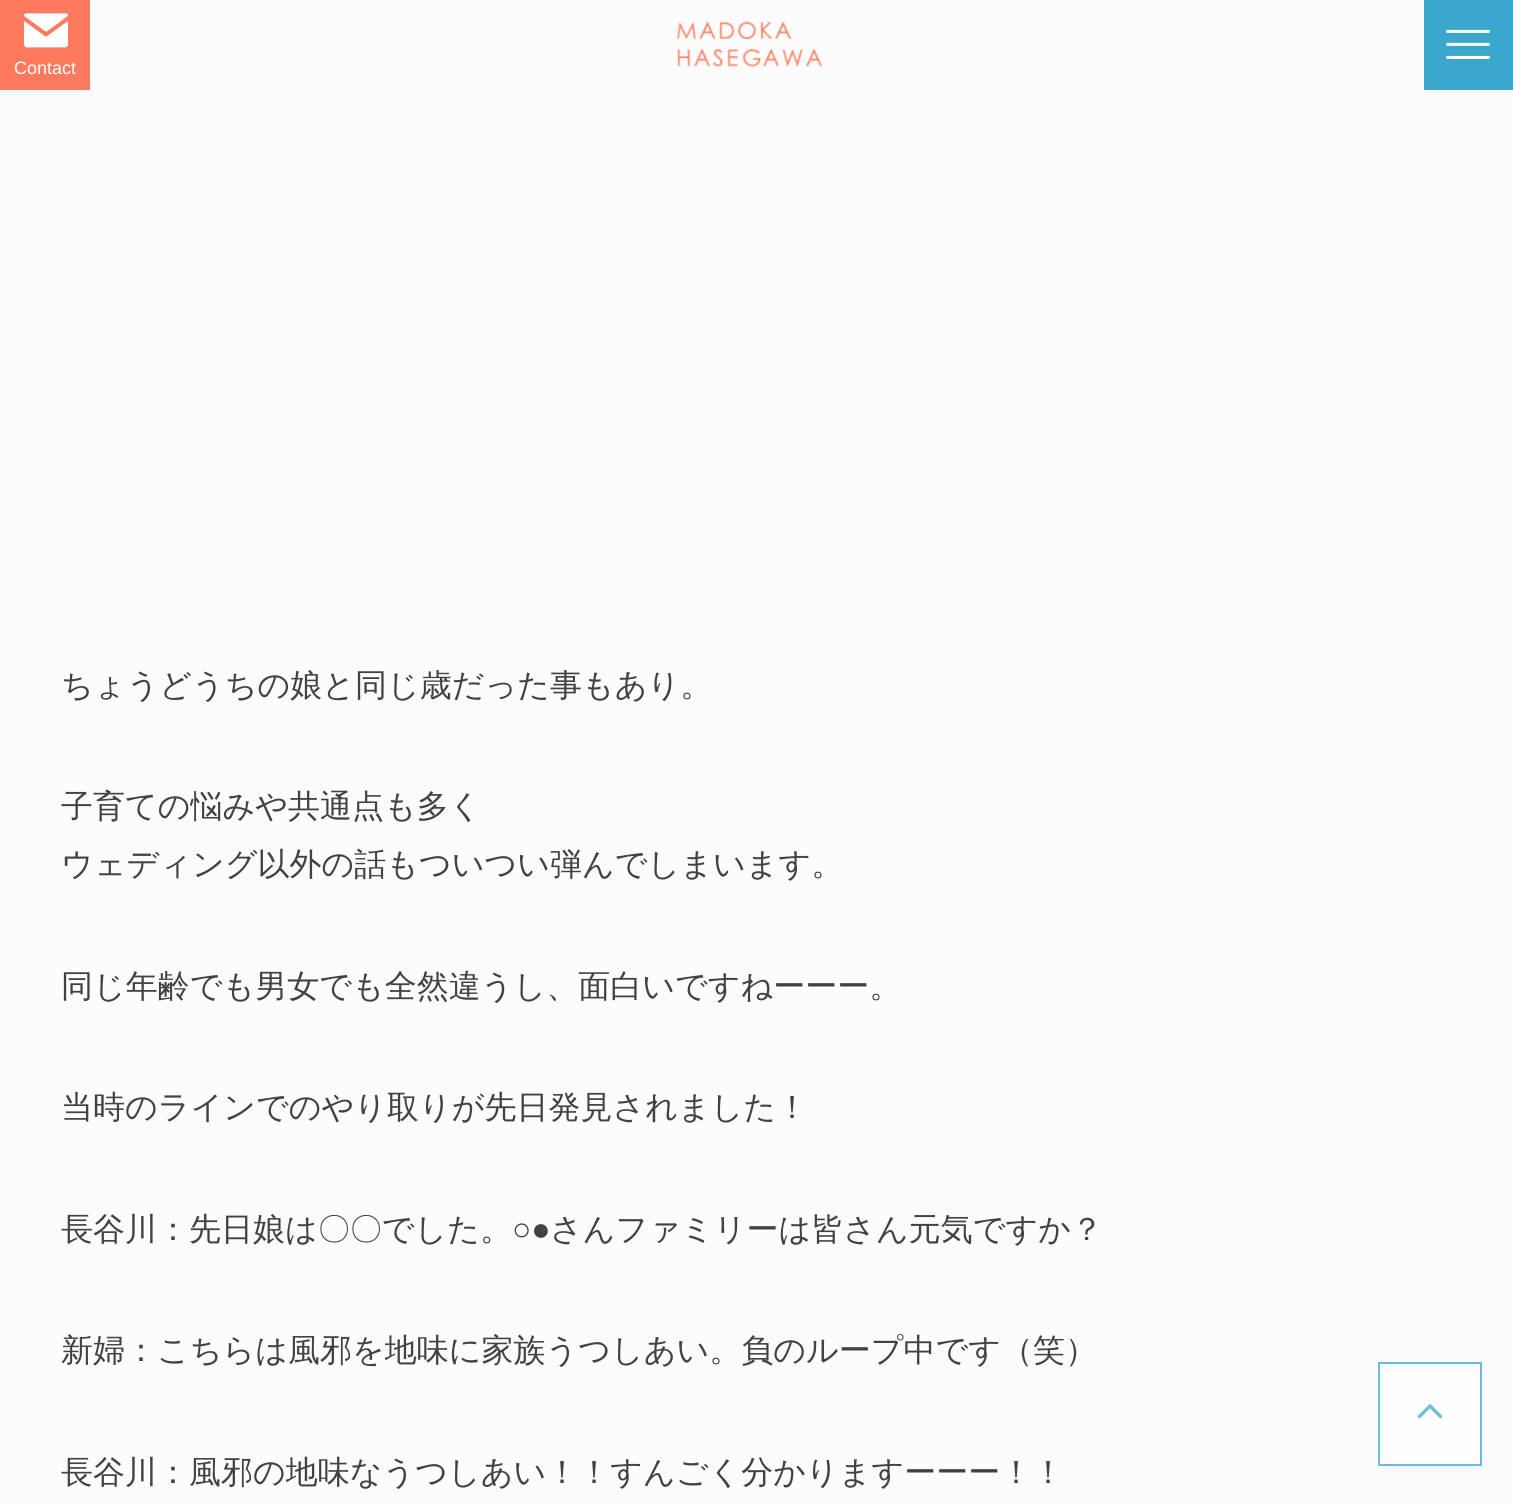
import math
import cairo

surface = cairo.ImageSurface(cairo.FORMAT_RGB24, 1513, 1505)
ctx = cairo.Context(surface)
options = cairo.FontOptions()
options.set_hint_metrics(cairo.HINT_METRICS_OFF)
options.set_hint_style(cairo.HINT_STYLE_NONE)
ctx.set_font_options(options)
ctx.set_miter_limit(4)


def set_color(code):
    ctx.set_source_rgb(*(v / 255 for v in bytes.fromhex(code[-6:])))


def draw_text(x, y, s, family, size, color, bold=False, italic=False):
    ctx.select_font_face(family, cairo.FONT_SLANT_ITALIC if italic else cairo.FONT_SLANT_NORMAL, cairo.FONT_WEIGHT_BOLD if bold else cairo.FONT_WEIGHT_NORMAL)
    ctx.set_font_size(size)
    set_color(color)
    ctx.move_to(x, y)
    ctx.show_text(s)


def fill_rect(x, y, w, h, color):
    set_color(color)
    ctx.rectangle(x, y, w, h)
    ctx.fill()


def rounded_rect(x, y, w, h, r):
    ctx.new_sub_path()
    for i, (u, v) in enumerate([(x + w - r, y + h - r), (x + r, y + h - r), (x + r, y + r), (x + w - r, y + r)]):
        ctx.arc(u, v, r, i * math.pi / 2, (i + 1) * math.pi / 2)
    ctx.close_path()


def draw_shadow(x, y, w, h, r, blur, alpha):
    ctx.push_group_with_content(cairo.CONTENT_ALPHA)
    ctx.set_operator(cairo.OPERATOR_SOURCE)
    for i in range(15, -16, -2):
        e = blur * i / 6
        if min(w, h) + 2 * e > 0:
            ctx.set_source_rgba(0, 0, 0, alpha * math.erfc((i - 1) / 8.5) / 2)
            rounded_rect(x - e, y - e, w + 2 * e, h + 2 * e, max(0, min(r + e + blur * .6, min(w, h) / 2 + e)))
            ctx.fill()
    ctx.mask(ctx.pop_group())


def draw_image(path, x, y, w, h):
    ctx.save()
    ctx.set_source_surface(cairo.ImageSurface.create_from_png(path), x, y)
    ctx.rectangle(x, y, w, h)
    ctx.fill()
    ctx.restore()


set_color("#fcfcfc")
ctx.paint()
draw_text(61, 696, "ちょうどうちの娘と同じ歳だった事もあり。", "WenQuanYi Zen Hei Medium", 32, "#424242")
fill_rect(309, 669, 258, 1, "#fdfdfd")
fill_rect(0, 0, 90, 90, "#fd7a5e")
draw_image("assets/img1.png", 24, 13, 44, 35)
draw_text(14, 74, "Contact", "Liberation Sans", 18, "#ffffff")
draw_image("assets/img2.png", 676, 21, 147, 46)
fill_rect(1424, 0, 89, 90, "#3ba7cc")
draw_image("assets/img3.png", 1446, 29, 44, 30)
draw_text(61, 817, "子育ての悩みや共通点も多く", "WenQuanYi Zen Hei Medium", 32, "#424242")
draw_text(61, 875, "ウェディング以外の話もついつい弾んでしまいます。", "WenQuanYi Zen Hei Medium", 32, "#424242")
draw_text(61, 997, "同じ年齢でも男女でも全然違うし、面白いですねーーー。", "WenQuanYi Zen Hei Medium", 32, "#424242")
draw_text(61, 1118, "当時のラインでのやり取りが先日発見されました！", "WenQuanYi Zen Hei Medium", 32, "#424242")
draw_text(61, 1240, "長谷川：先日娘は〇〇でした。", "WenQuanYi Zen Hei Medium", 32, "#424242")
draw_text(512, 1240, "○●", "Liberation Sans", 32, "#424242")
draw_text(550, 1240, "さんファミリーは皆さん元気ですか？", "WenQuanYi Zen Hei Medium", 32, "#424242")
draw_text(61, 1361, "新婦：こちらは風邪を地味に家族うつしあい。負のループ中です（笑）", "WenQuanYi Zen Hei Medium", 32, "#424242")
draw_text(61, 1483, "長谷川：風邪の地味なうつしあい！！すんごく分かりますーーー！！", "WenQuanYi Zen Hei Medium", 32, "#424242")
set_color("#3f3f3f")
draw_shadow(1386, 1378, 88, 88, 0, 4, 0.1)
fill_rect(1380, 1371, 100, 93, "#fefefe")
ctx.rectangle(1379, 1363, 102, 102)
set_color("#6bbcd8")
ctx.stroke()
draw_image("assets/img4.png", 1417, 1404, 26, 15)
surface.write_to_png("output.png")
